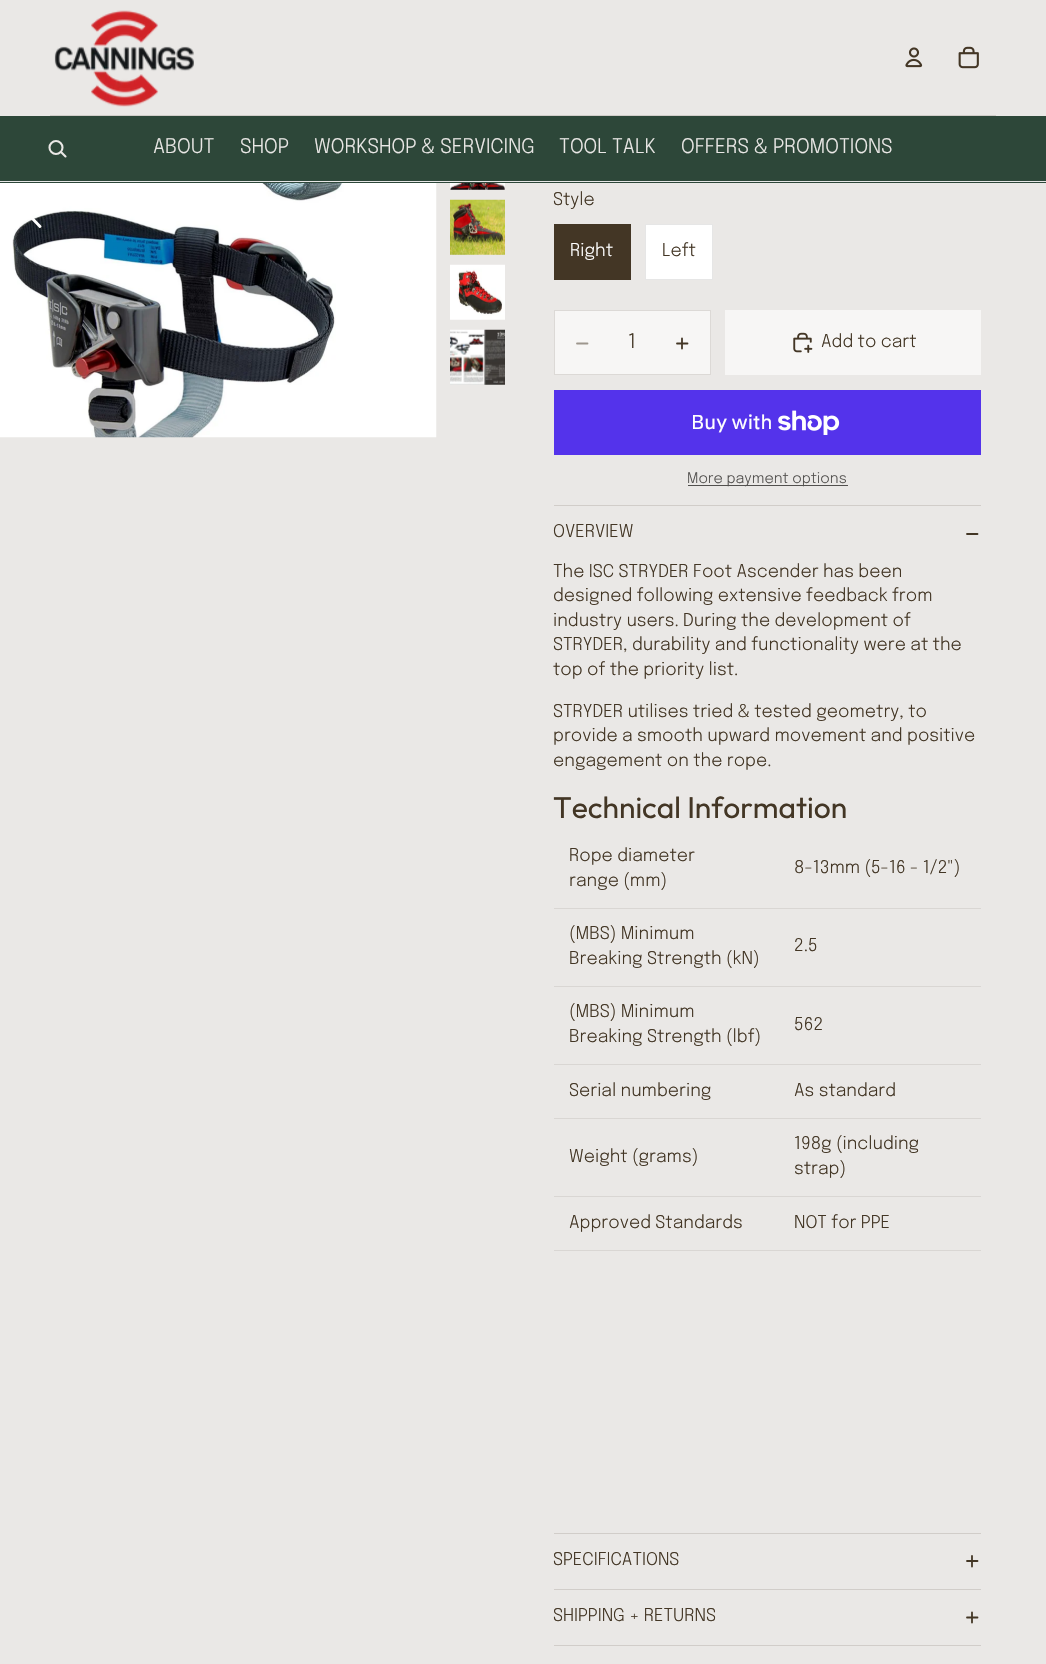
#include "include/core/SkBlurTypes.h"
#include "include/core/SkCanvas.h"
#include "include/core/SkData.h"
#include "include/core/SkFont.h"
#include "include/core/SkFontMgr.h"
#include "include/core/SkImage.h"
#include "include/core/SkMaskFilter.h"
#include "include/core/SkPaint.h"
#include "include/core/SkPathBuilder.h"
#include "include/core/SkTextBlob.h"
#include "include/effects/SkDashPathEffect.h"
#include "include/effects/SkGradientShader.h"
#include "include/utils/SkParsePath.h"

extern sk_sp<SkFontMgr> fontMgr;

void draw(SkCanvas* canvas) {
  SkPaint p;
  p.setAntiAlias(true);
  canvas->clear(SkColorSetRGB(234, 232, 230));
  p.setColor(SkColorSetRGB(209, 205, 201));
  canvas->drawRect(SkRect::MakeLTRB(50, 115, 996, 116), p);
  canvas->drawImageRect(SkImages::DeferredFromEncodedData(SkData::MakeFromFileName("images/1.png")), SkRect::MakeLTRB(54, 10, 194, 107), SkSamplingOptions());
  canvas->drawImageRect(SkImages::DeferredFromEncodedData(SkData::MakeFromFileName("images/2.png")), SkRect::MakeLTRB(905, 47, 923, 68), SkSamplingOptions());
  canvas->drawImageRect(SkImages::DeferredFromEncodedData(SkData::MakeFromFileName("images/3.png")), SkRect::MakeLTRB(958, 46, 979, 69), SkSamplingOptions());
  p.setColor(SkColorSetRGB(45, 71, 57));
  canvas->drawRect(SkRect::MakeLTRB(0, 116, 1046, 183), p);
  p.setColor(SkColorSetRGB(230, 230, 230));
  canvas->drawRect(SkRect::MakeLTRB(0, 181, 1046, 182), p);
  p.setStyle(SkPaint::kStroke_Style);
  p.setStrokeWidth(2.1f);
  p.setColor(SkColorSetRGB(234, 232, 230));
  canvas->drawCircle(56, 147.5f, 6.5f, p);
  p.setStrokeCap(SkPaint::kRound_Cap);
  p.setStrokeJoin(SkPaint::kRound_Join);
  canvas->drawPath(SkPathBuilder().moveTo(61, 152).lineTo(65.5f, 156.5f).detach(), p);
  canvas->drawImageRect(SkImages::DeferredFromEncodedData(SkData::MakeFromFileName("images/4.png")), SkRect::MakeLTRB(0, 183, 437, 438), SkSamplingOptions());
  p.setStrokeWidth(2.9f);
  p.setColor(SK_ColorWHITE);
  canvas->drawPath(SkPathBuilder().moveTo(40, 203.5f).lineTo(29, 215).lineTo(40, 226.5f).detach(), p);
  canvas->drawImageRect(SkImages::DeferredFromEncodedData(SkData::MakeFromFileName("images/5.png")), SkRect::MakeLTRB(450, 183, 505, 190), SkSamplingOptions());
  canvas->drawImageRect(SkImages::DeferredFromEncodedData(SkData::MakeFromFileName("images/6.png")), SkRect::MakeLTRB(450, 199, 505, 255), SkSamplingOptions());
  canvas->drawImageRect(SkImages::DeferredFromEncodedData(SkData::MakeFromFileName("images/7.png")), SkRect::MakeLTRB(450, 264, 505, 320), SkSamplingOptions());
  canvas->drawImageRect(SkImages::DeferredFromEncodedData(SkData::MakeFromFileName("images/8.png")), SkRect::MakeLTRB(450, 329, 505, 385), SkSamplingOptions());
  p.setStrokeWidth(1);
  p.setStrokeCap(SkPaint::kButt_Cap);
  p.setStrokeJoin(SkPaint::kMiter_Join);
  p.setColor(SkColorSetRGB(67, 54, 37));
  canvas->drawRect(SkRect::MakeLTRB(554.5f, 224.5f, 630.5f, 279.5f), p);
  p.setStyle(SkPaint::kFill_Style);
  canvas->drawRect(SkRect::MakeLTRB(555, 225, 630, 279), p);
  p.setColor(SK_ColorWHITE);
  canvas->drawRect(SkRect::MakeLTRB(645.5f, 224.5f, 712.5f, 279.5f), p);
  p.setStyle(SkPaint::kStroke_Style);
  p.setColor(SkColorSetRGB(230, 230, 230));
  canvas->drawRect(SkRect::MakeLTRB(645.5f, 224.5f, 712.5f, 279.5f), p);
  p.setStyle(SkPaint::kFill_Style);
  p.setColor(SkColorSetRGB(247, 246, 245));
  canvas->drawRect(SkRect::MakeLTRB(554.5f, 310.5f, 710.5f, 374.5f), p);
  p.setStyle(SkPaint::kStroke_Style);
  p.setColor(SkColorSetRGB(220, 217, 214));
  canvas->drawRect(SkRect::MakeLTRB(554.5f, 310.5f, 710.5f, 374.5f), p);
  p.setStrokeWidth(1.8f);
  p.setStrokeCap(SkPaint::kRound_Cap);
  p.setColor(SkColorSetRGB(157, 150, 141));
  canvas->drawPath(SkPathBuilder().moveTo(577, 343.5f).lineTo(587.5f, 343.5f).detach(), p);
  p.setColor(SkColorSetRGB(67, 54, 37));
  canvas->drawPath(SkPathBuilder().moveTo(677, 343.5f).lineTo(687.5f, 343.5f).moveTo(682, 338.5f).lineTo(682, 348.5f).detach(), p);
  p.setStyle(SkPaint::kFill_Style);
  p.setColor(SkColorSetRGB(247, 246, 245));
  canvas->drawRect(SkRect::MakeLTRB(725, 310, 981, 375), p);
  canvas->drawImageRect(SkImages::DeferredFromEncodedData(SkData::MakeFromFileName("images/9.png")), SkRect::MakeLTRB(793, 332, 813, 353), SkSamplingOptions());
  p.setColor(SkColorSetRGB(84, 51, 235));
  canvas->drawRect(SkRect::MakeLTRB(554, 390, 981, 455), p);
  canvas->drawImageRect(SkImages::DeferredFromEncodedData(SkData::MakeFromFileName("images/10.png")), SkRect::MakeLTRB(778, 410, 840, 435), SkSamplingOptions());
  p.setColor(SkColorSetRGB(82, 80, 78));
  canvas->drawRect(SkRect::MakeLTRB(688, 485, 848, 486), p);
  p.setColor(SkColorSetRGB(209, 205, 201));
  canvas->drawRect(SkRect::MakeLTRB(554, 505, 981, 506), p);
  p.setStyle(SkPaint::kStroke_Style);
  p.setColor(SkColorSetRGB(67, 54, 37));
  canvas->drawPath(SkPathBuilder().moveTo(977.5f, 534).lineTo(967, 534).detach(), p);
  p.setStyle(SkPaint::kFill_Style);
  p.setColor(SkColorSetRGB(217, 214, 211));
  canvas->drawRect(SkRect::MakeLTRB(554, 908, 981, 909), p);
  canvas->drawRect(SkRect::MakeLTRB(554, 986, 981, 987), p);
  canvas->drawRect(SkRect::MakeLTRB(554, 1064, 981, 1065), p);
  canvas->drawRect(SkRect::MakeLTRB(554, 1118, 981, 1119), p);
  canvas->drawRect(SkRect::MakeLTRB(554, 1196, 981, 1197), p);
  canvas->drawRect(SkRect::MakeLTRB(554, 1250, 981, 1251), p);
  p.setColor(SkColorSetRGB(209, 205, 201));
  canvas->drawRect(SkRect::MakeLTRB(554, 1533, 981, 1534), p);
  p.setStyle(SkPaint::kStroke_Style);
  p.setColor(SkColorSetRGB(67, 54, 37));
  canvas->drawPath(SkPathBuilder().moveTo(967, 1561).lineTo(977.5f, 1561).moveTo(972, 1556).lineTo(972, 1566.5f).detach(), p);
  p.setStyle(SkPaint::kFill_Style);
  p.setColor(SkColorSetRGB(209, 205, 201));
  canvas->drawRect(SkRect::MakeLTRB(554, 1589, 981, 1590), p);
  canvas->drawRect(SkRect::MakeLTRB(554, 1645, 981, 1646), p);
  p.setStyle(SkPaint::kStroke_Style);
  p.setColor(SkColorSetRGB(67, 54, 37));
  canvas->drawPath(SkPathBuilder().moveTo(967, 1617.5f).lineTo(977.5f, 1617.5f).moveTo(972, 1612.5f).lineTo(972, 1622.5f).detach(), p);
  SkFont font1(fontMgr->matchFamilyStyle("Epilogue", SkFontStyle(300, SkFontStyle::kNormal_Width, SkFontStyle::kUpright_Slant)), 20);
  font1.setSubpixel(true);
  p.setStyle(SkPaint::kFill_Style);
  p.setColor(SkColorSetRGB(234, 232, 230));
  canvas->drawString("ABOUT", 153, 153, font1, p);
  canvas->drawString("SHOP", 240, 153, font1, p);
  canvas->drawString("WORKSHOP & SERVICING", 314, 153, font1, p);
  canvas->drawString("TOOL TALK", 559, 153, font1, p);
  canvas->drawString("OFFERS & PROMOTIONS", 681, 153, font1, p);
  SkFont font2(fontMgr->matchFamilyStyle("Epilogue", SkFontStyle(300, SkFontStyle::kNormal_Width, SkFontStyle::kUpright_Slant)), 17.5f);
  font2.setSubpixel(true);
  p.setColor(SkColorSetRGB(67, 54, 37));
  canvas->drawString("Style", 553, 205, font2, p);
  p.setColor(SK_ColorWHITE);
  canvas->drawString("Right", 570, 256, font2, p);
  p.setColor(SkColorSetRGB(67, 54, 37));
  canvas->drawString("Left", 662, 256, font2, p);
  canvas->drawString("1", 628, 348, font1, p);
  canvas->drawString("Add to cart", 821, 347, font2, p);
  SkFont font3(fontMgr->matchFamilyStyle("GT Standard", SkFontStyle::Normal()), 20);
  font3.setSubpixel(true);
  p.setColor(SK_ColorWHITE);
  canvas->drawString("Buy with", 691, 429, font3, p);
  SkFont font4(fontMgr->matchFamilyStyle("Epilogue", SkFontStyle(300, SkFontStyle::kNormal_Width, SkFontStyle::kUpright_Slant)), 14.5f);
  font4.setSubpixel(true);
  p.setColor(SkColorSetRGB(82, 80, 78));
  canvas->drawString("More payment options", 687, 483, font4, p);
  p.setColor(SkColorSetRGB(67, 54, 37));
  canvas->drawString("OVERVIEW", 553, 537, font2, p);
  canvas->drawString("The ISC STRYDER Foot Ascender has been", 553, 577, font2, p);
  canvas->drawString("designed following extensive feedback from", 553, 601, font2, p);
  canvas->drawString("industry users. During the development of", 553, 626, font2, p);
  canvas->drawString("STRYDER, durability and functionality were at the", 553, 650, font2, p);
  canvas->drawString("top of the priority list.", 553, 675, font2, p);
  canvas->drawString("STRYDER utilises tried & tested geometry, to", 553, 717, font2, p);
  canvas->drawString("provide a smooth upward movement and positive", 553, 741, font2, p);
  canvas->drawString("engagement on the rope.", 553, 766, font2, p);
  SkFont font5(fontMgr->matchFamilyStyle("Outfit", SkFontStyle::Normal()), 30);
  font5.setSubpixel(true);
  canvas->drawString("Technical Information", 553, 818, font5, p);
  canvas->drawString("Rope diameter", 569, 861, font2, p);
  canvas->drawString("range (mm)", 569, 886, font2, p);
  canvas->drawString("8-13mm (5-16 - 1/2\")", 794, 873, font2, p);
  canvas->drawString("(MBS) Minimum", 569, 939, font2, p);
  canvas->drawString("Breaking Strength (kN)", 569, 964, font2, p);
  canvas->drawString("2.5", 794, 951, font2, p);
  canvas->drawString("(MBS) Minimum", 569, 1017, font2, p);
  canvas->drawString("Breaking Strength (lbf)", 569, 1042, font2, p);
  canvas->drawString("562", 794, 1030, font2, p);
  canvas->drawString("Serial numbering", 569, 1096, font2, p);
  canvas->drawString("As standard", 794, 1096, font2, p);
  canvas->drawString("Weight (grams)", 569, 1162, font2, p);
  canvas->drawString("198g (including", 794, 1149, font2, p);
  canvas->drawString("strap)", 794, 1174, font2, p);
  canvas->drawString("Approved Standards", 569, 1228, font2, p);
  canvas->drawString("NOT for PPE", 794, 1228, font2, p);
  canvas->drawString("SPECIFICATIONS", 553, 1565, font2, p);
  canvas->drawString("SHIPPING + RETURNS", 553, 1621, font2, p);
}
